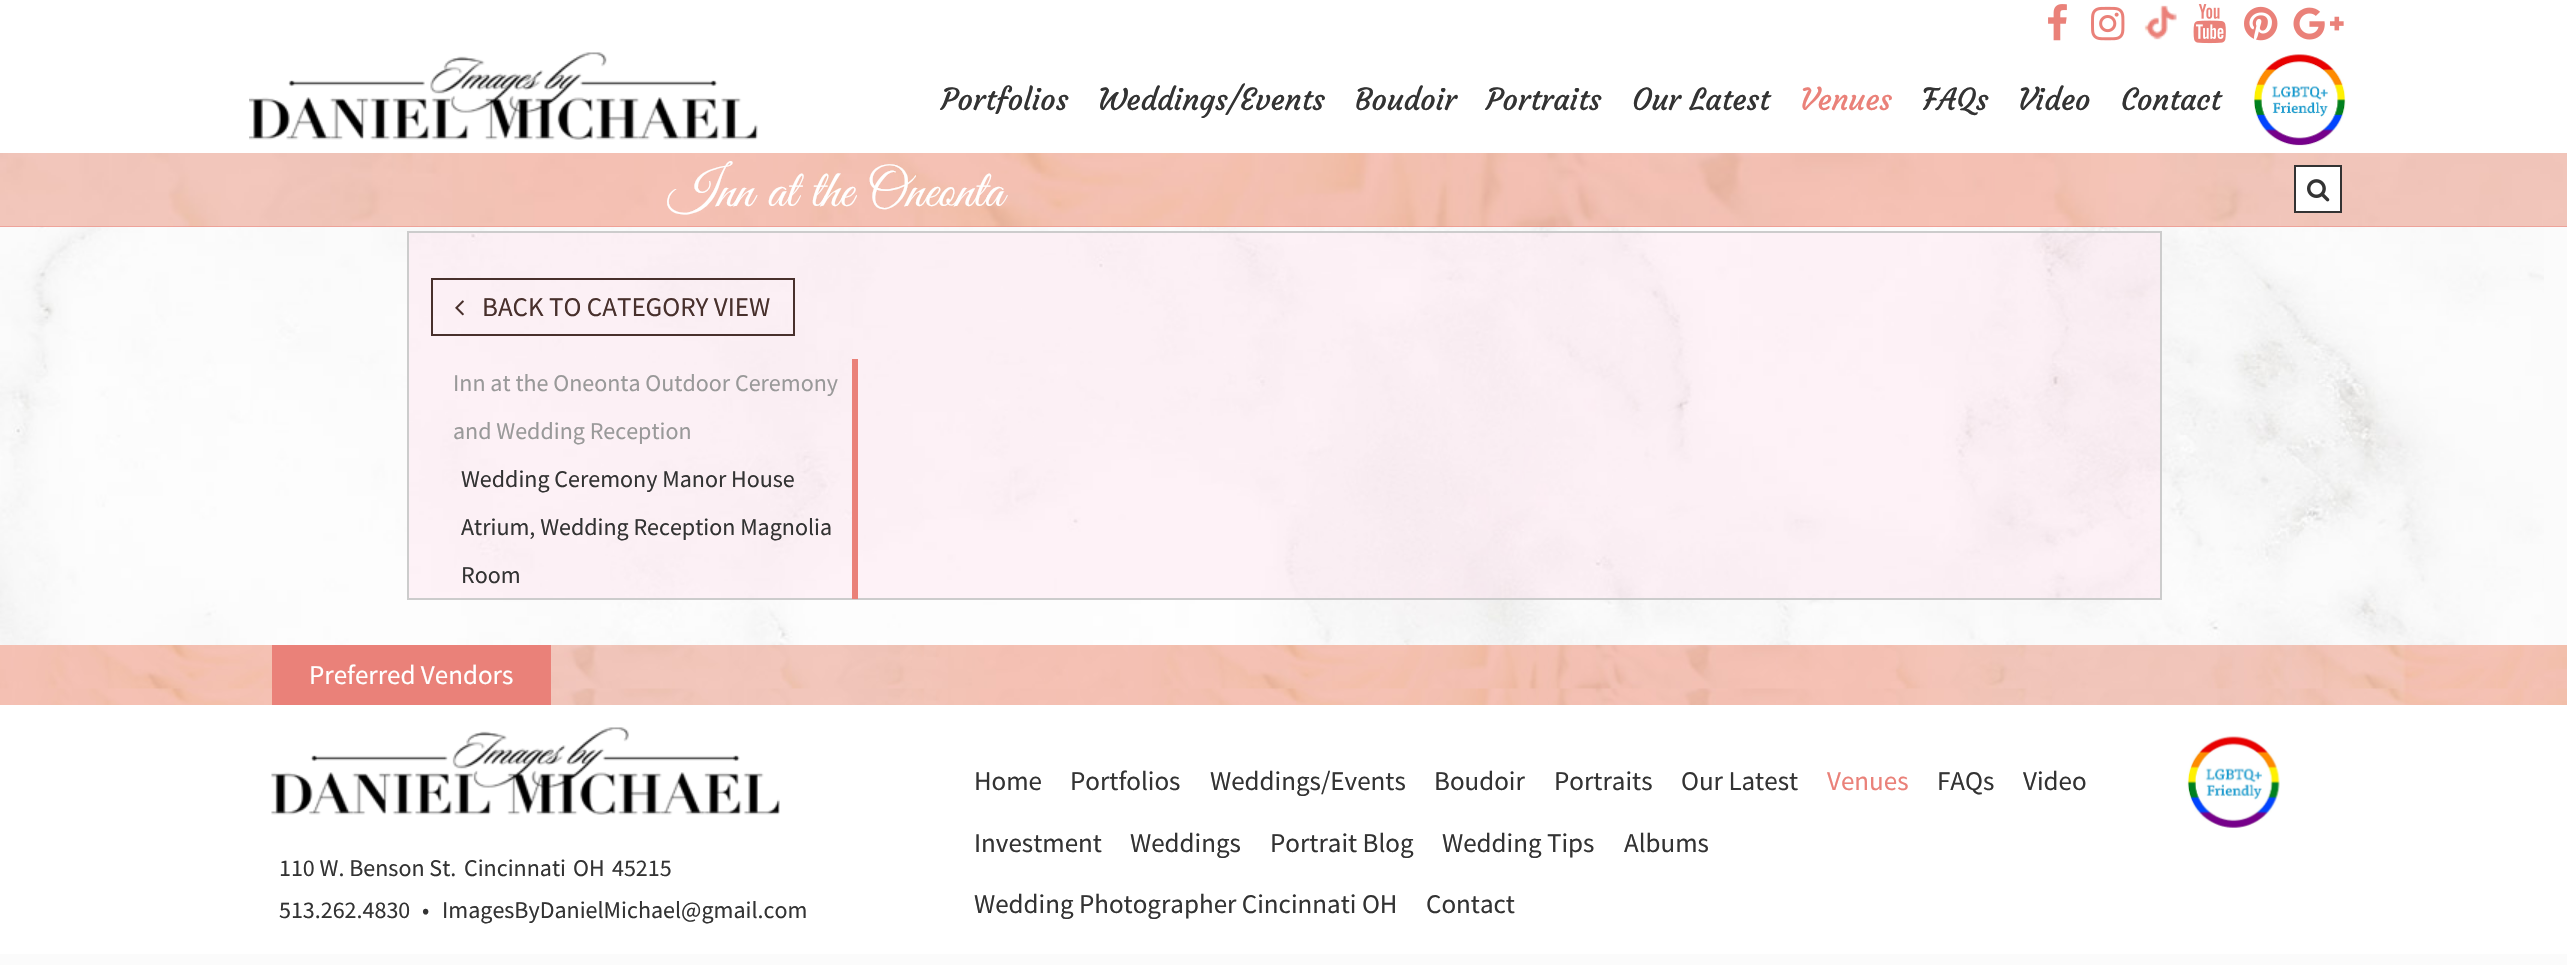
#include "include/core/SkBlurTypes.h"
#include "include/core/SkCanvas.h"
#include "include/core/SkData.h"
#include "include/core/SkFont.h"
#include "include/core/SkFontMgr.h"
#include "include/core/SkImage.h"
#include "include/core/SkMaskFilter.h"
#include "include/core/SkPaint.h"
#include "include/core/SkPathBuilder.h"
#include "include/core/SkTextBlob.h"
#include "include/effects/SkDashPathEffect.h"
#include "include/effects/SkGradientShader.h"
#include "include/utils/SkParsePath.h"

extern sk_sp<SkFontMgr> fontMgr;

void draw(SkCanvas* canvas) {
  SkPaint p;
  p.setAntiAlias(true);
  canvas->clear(SkColorSetRGB(251, 251, 251));
  p.setColor(SK_ColorWHITE);
  canvas->drawRect(SkRect::MakeLTRB(0, 0, 2567, 153), p);
  canvas->drawImageRect(SkImages::DeferredFromEncodedData(SkData::MakeFromFileName("images/1.png")), SkRect::MakeLTRB(2048, 4, 2067, 41), SkSamplingOptions());
  canvas->drawImageRect(SkImages::DeferredFromEncodedData(SkData::MakeFromFileName("images/2.png")), SkRect::MakeLTRB(2091, 6, 2125, 41), SkSamplingOptions());
  canvas->drawImageRect(SkImages::DeferredFromEncodedData(SkData::MakeFromFileName("images/3.png")), SkRect::MakeLTRB(2144, 5, 2177, 40), SkSamplingOptions());
  canvas->drawImageRect(SkImages::DeferredFromEncodedData(SkData::MakeFromFileName("images/4.png")), SkRect::MakeLTRB(2193, 4, 2226, 44), SkSamplingOptions());
  canvas->drawImageRect(SkImages::DeferredFromEncodedData(SkData::MakeFromFileName("images/5.png")), SkRect::MakeLTRB(2244, 6, 2278, 41), SkSamplingOptions());
  canvas->drawImageRect(SkImages::DeferredFromEncodedData(SkData::MakeFromFileName("images/6.png")), SkRect::MakeLTRB(2293, 7, 2344, 40), SkSamplingOptions());
  canvas->drawImageRect(SkImages::DeferredFromEncodedData(SkData::MakeFromFileName("images/7.png")), SkRect::MakeLTRB(249, 52, 758, 140), SkSamplingOptions());
  canvas->drawImageRect(SkImages::DeferredFromEncodedData(SkData::MakeFromFileName("images/8.png")), SkRect::MakeLTRB(2254, 54, 2346, 146), SkSamplingOptions());
  canvas->drawImageRect(SkImages::DeferredFromEncodedData(SkData::MakeFromFileName("images/9.png")), SkRect::MakeLTRB(0, 227, 2544, 645), SkSamplingOptions());
  p.setColor(SkColorSetRGB(234, 129, 121));
  canvas->drawRect(SkRect::MakeLTRB(0, 226, 2567, 227), p);
  canvas->drawImageRect(SkImages::DeferredFromEncodedData(SkData::MakeFromFileName("images/10.png")), SkRect::MakeLTRB(0, 153, 2567, 227), SkSamplingOptions());
  p.setColor(SK_ColorWHITE);
  canvas->drawRect(SkRect::MakeLTRB(2295, 166, 2341, 212), p);
  p.setStyle(SkPaint::kStroke_Style);
  p.setStrokeWidth(2);
  p.setColor(SkColorSetRGB(51, 51, 51));
  canvas->drawRect(SkRect::MakeLTRB(2295, 166, 2341, 212), p);
  canvas->drawImageRect(SkImages::DeferredFromEncodedData(SkData::MakeFromFileName("images/11.png")), SkRect::MakeLTRB(2307, 179, 2330, 202), SkSamplingOptions());
  p.setStyle(SkPaint::kFill_Style);
  p.setColor(SkColorSetARGB(89, 255, 222, 235));
  canvas->drawRect(SkRect::MakeLTRB(408, 232, 2161, 599), p);
  p.setStyle(SkPaint::kStroke_Style);
  p.setColor(SkColorSetRGB(204, 204, 204));
  canvas->drawRect(SkRect::MakeLTRB(408, 232, 2161, 599), p);
  p.setColor(SkColorSetRGB(72, 48, 44));
  canvas->drawRect(SkRect::MakeLTRB(432, 279, 794, 335), p);
  canvas->drawImageRect(SkImages::DeferredFromEncodedData(SkData::MakeFromFileName("images/12.png")), SkRect::MakeLTRB(455, 300, 464, 316), SkSamplingOptions());
  p.setStyle(SkPaint::kFill_Style);
  p.setColor(SkColorSetRGB(234, 129, 121));
  canvas->drawRect(SkRect::MakeLTRB(852, 359, 858, 599), p);
  p.setColor(SK_ColorWHITE);
  canvas->drawRect(SkRect::MakeLTRB(0, 705, 2567, 954), p);
  canvas->drawImageRect(SkImages::DeferredFromEncodedData(SkData::MakeFromFileName("images/13.png")), SkRect::MakeLTRB(0, 645, 2567, 705), SkSamplingOptions());
  p.setColor(SkColorSetRGB(234, 129, 121));
  canvas->drawRect(SkRect::MakeLTRB(272, 645, 551, 705), p);
  canvas->drawImageRect(SkImages::DeferredFromEncodedData(SkData::MakeFromFileName("images/14.png")), SkRect::MakeLTRB(271, 727, 780, 815), SkSamplingOptions());
  canvas->drawImageRect(SkImages::DeferredFromEncodedData(SkData::MakeFromFileName("images/15.png")), SkRect::MakeLTRB(2187, 736, 2280, 828), SkSamplingOptions());
  SkFont font1(fontMgr->matchFamilyStyle("Courgette", SkFontStyle::Normal()), 30);
  font1.setSubpixel(true);
  p.setColor(SkColorSetRGB(51, 51, 51));
  canvas->drawString("Portfolios", 941, 110, font1, p);
  canvas->drawString("Weddings/Events", 1098, 110, font1, p);
  canvas->drawString("Boudoir", 1355, 110, font1, p);
  canvas->drawString("Portraits", 1486, 110, font1, p);
  canvas->drawString("Our Latest", 1632, 110, font1, p);
  p.setColor(SkColorSetRGB(234, 129, 121));
  canvas->drawString("Venues", 1800, 110, font1, p);
  p.setColor(SkColorSetRGB(51, 51, 51));
  canvas->drawString("FAQs", 1922, 110, font1, p);
  canvas->drawString("Video", 2018, 110, font1, p);
  canvas->drawString("Contact", 2121, 110, font1, p);
  SkFont font2(fontMgr->matchFamilyStyle("Great Vibes", SkFontStyle::Normal()), 54);
  font2.setSubpixel(true);
  p.setColor(SK_ColorWHITE);
  canvas->drawString("Inn at the Oneonta", 668, 206, font2, p);
  SkFont font3(fontMgr->matchFamilyStyle("Source Sans Pro", SkFontStyle::Normal()), 27);
  font3.setSubpixel(true);
  p.setColor(SkColorSetRGB(72, 48, 44));
  canvas->drawString("BACK TO CATEGORY VIEW", 482, 316, font3, p);
  SkFont font4(fontMgr->matchFamilyStyle("Source Sans Pro", SkFontStyle::Normal()), 24);
  font4.setSubpixel(true);
  p.setColor(SkColorSetRGB(153, 153, 153));
  canvas->drawString("Inn at the Oneonta Outdoor Ceremony", 453, 391, font4, p);
  canvas->drawString("and Wedding Reception", 453, 439, font4, p);
  p.setColor(SkColorSetRGB(51, 51, 51));
  canvas->drawString("Wedding Ceremony Manor House", 461, 487, font4, p);
  canvas->drawString("Atrium, Wedding Reception Magnolia", 461, 535, font4, p);
  canvas->drawString("Room", 461, 583, font4, p);
  p.setColor(SK_ColorWHITE);
  canvas->drawString("Preferred Vendors", 309, 684, font3, p);
  p.setColor(SkColorSetRGB(51, 51, 51));
  canvas->drawString("110 W. Benson St.", 279, 876, font4, p);
  canvas->drawString("Cincinnati", 464, 876, font4, p);
  canvas->drawString("OH", 573, 876, font4, p);
  canvas->drawString("45215", 612, 876, font4, p);
  canvas->drawString("513.262.4830", 279, 918, font4, p);
  canvas->drawString("•", 422, 918, font4, p);
  canvas->drawString("ImagesByDanielMichael@gmail.com", 442, 918, font4, p);
  canvas->drawString("Home", 974, 790, font3, p);
  canvas->drawString("Portfolios", 1070, 790, font3, p);
  canvas->drawString("Weddings/Events", 1210, 790, font3, p);
  canvas->drawString("Boudoir", 1434, 790, font3, p);
  canvas->drawString("Portraits", 1554, 790, font3, p);
  canvas->drawString("Our Latest", 1681, 790, font3, p);
  p.setColor(SkColorSetRGB(234, 129, 121));
  canvas->drawString("Venues", 1827, 790, font3, p);
  p.setColor(SkColorSetRGB(51, 51, 51));
  canvas->drawString("FAQs", 1937, 790, font3, p);
  canvas->drawString("Video", 2023, 790, font3, p);
  canvas->drawString("Investment", 974, 852, font3, p);
  canvas->drawString("Weddings", 1130, 852, font3, p);
  canvas->drawString("Portrait Blog", 1270, 852, font3, p);
  canvas->drawString("Wedding Tips", 1442, 852, font3, p);
  canvas->drawString("Albums", 1624, 852, font3, p);
  canvas->drawString("Wedding Photographer Cincinnati OH", 974, 913, font3, p);
  canvas->drawString("Contact", 1426, 913, font3, p);
}
